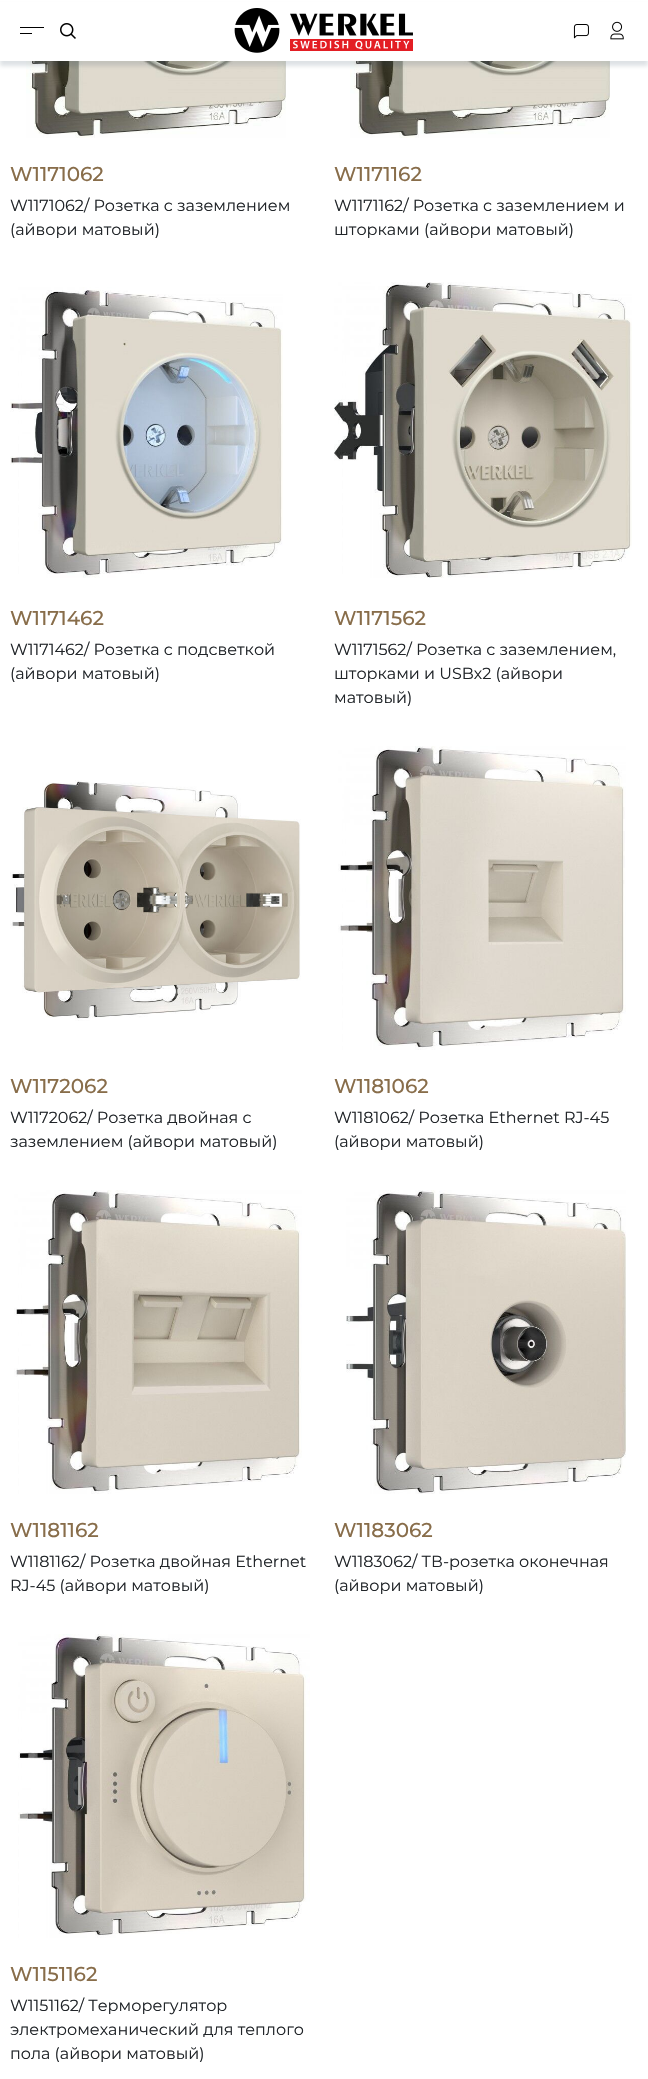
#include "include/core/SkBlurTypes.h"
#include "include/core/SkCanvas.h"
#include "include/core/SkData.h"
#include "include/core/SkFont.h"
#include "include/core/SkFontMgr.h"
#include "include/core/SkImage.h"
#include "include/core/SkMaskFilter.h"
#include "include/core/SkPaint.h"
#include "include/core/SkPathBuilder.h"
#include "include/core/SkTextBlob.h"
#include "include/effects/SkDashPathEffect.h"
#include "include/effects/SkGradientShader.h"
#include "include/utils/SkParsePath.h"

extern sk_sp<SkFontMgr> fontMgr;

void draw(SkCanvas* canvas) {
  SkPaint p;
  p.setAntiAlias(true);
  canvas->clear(SK_ColorWHITE);
  canvas->drawImageRect(SkImages::DeferredFromEncodedData(SkData::MakeFromFileName("images/5.png")), SkRect::MakeLTRB(26, 61, 286, 138), SkSamplingOptions());
  canvas->drawImageRect(SkImages::DeferredFromEncodedData(SkData::MakeFromFileName("images/6.png")), SkRect::MakeLTRB(350, 61, 610, 138), SkSamplingOptions());
  p.setColor(SkColorSetARGB(38, 34, 60, 80));
  p.setMaskFilter(SkMaskFilter::MakeBlur(kNormal_SkBlurStyle, 2));
  canvas->drawRect(SkRect::MakeLTRB(0, 5, 648, 66), p);
  p.setMaskFilter(nullptr);
  p.setColor(SK_ColorWHITE);
  canvas->drawRect(SkRect::MakeLTRB(0, 2, 648, 61), p);
  p.setColor(SK_ColorBLACK);
  canvas->drawRect(SkRect::MakeLTRB(20, 27, 44, 28), p);
  canvas->drawRect(SkRect::MakeLTRB(20, 33, 32, 34), p);
  canvas->drawImageRect(SkImages::DeferredFromEncodedData(SkData::MakeFromFileName("images/1.png")), SkRect::MakeLTRB(60, 23, 76, 39), SkSamplingOptions());
  canvas->drawImageRect(SkImages::DeferredFromEncodedData(SkData::MakeFromFileName("images/2.png")), SkRect::MakeLTRB(234, 8, 413, 53), SkSamplingOptions());
  canvas->drawImageRect(SkImages::DeferredFromEncodedData(SkData::MakeFromFileName("images/3.png")), SkRect::MakeLTRB(573, 24, 589, 39), SkSamplingOptions());
  canvas->drawImageRect(SkImages::DeferredFromEncodedData(SkData::MakeFromFileName("images/4.png")), SkRect::MakeLTRB(610, 21, 624, 40), SkSamplingOptions());
  canvas->drawImageRect(SkImages::DeferredFromEncodedData(SkData::MakeFromFileName("images/7.png")), SkRect::MakeLTRB(10, 287, 283, 578), SkSamplingOptions());
  canvas->drawImageRect(SkImages::DeferredFromEncodedData(SkData::MakeFromFileName("images/8.png")), SkRect::MakeLTRB(334, 282, 632, 578), SkSamplingOptions());
  canvas->drawImageRect(SkImages::DeferredFromEncodedData(SkData::MakeFromFileName("images/9.png")), SkRect::MakeLTRB(10, 780, 301, 1021), SkSamplingOptions());
  canvas->drawImageRect(SkImages::DeferredFromEncodedData(SkData::MakeFromFileName("images/10.png")), SkRect::MakeLTRB(338, 746, 626, 1050), SkSamplingOptions());
  canvas->drawImageRect(SkImages::DeferredFromEncodedData(SkData::MakeFromFileName("images/11.png")), SkRect::MakeLTRB(14, 1190, 302, 1494), SkSamplingOptions());
  canvas->drawImageRect(SkImages::DeferredFromEncodedData(SkData::MakeFromFileName("images/12.png")), SkRect::MakeLTRB(346, 1190, 626, 1494), SkSamplingOptions());
  canvas->drawImageRect(SkImages::DeferredFromEncodedData(SkData::MakeFromFileName("images/13.png")), SkRect::MakeLTRB(18, 1634, 310, 1938), SkSamplingOptions());
  SkFont font1(fontMgr->matchFamilyStyle("Montserrat", SkFontStyle(500, SkFontStyle::kNormal_Width, SkFontStyle::kUpright_Slant)), 20);
  font1.setSubpixel(true);
  p.setColor(SkColorSetRGB(136, 109, 74));
  canvas->drawString("W1171062", 10, 181, font1, p);
  SkFont font2(fontMgr->matchFamilyStyle("Montserrat", SkFontStyle::Normal()), 16);
  font2.setSubpixel(true);
  p.setColor(SkColorSetRGB(33, 37, 41));
  canvas->drawString("W1171062/ Розетка с заземлением", 10, 211, font2, p);
  canvas->drawString("(айвори матовый)", 10, 235, font2, p);
  p.setColor(SkColorSetRGB(136, 109, 74));
  canvas->drawString("W1171162", 334, 181, font1, p);
  p.setColor(SkColorSetRGB(33, 37, 41));
  canvas->drawString("W1171162/ Розетка с заземлением и", 334, 211, font2, p);
  canvas->drawString("шторками (айвори матовый)", 334, 235, font2, p);
  p.setColor(SkColorSetRGB(136, 109, 74));
  canvas->drawString("W1171462", 10, 625, font1, p);
  p.setColor(SkColorSetRGB(33, 37, 41));
  canvas->drawString("W1171462/ Розетка с подсветкой", 10, 655, font2, p);
  canvas->drawString("(айвори матовый)", 10, 679, font2, p);
  p.setColor(SkColorSetRGB(136, 109, 74));
  canvas->drawString("W1171562", 334, 625, font1, p);
  p.setColor(SkColorSetRGB(33, 37, 41));
  canvas->drawString("W1171562/ Розетка с заземлением,", 334, 655, font2, p);
  canvas->drawString("шторками и USBх2 (айвори", 334, 679, font2, p);
  canvas->drawString("матовый)", 334, 703, font2, p);
  p.setColor(SkColorSetRGB(136, 109, 74));
  canvas->drawString("W1172062", 10, 1093, font1, p);
  p.setColor(SkColorSetRGB(33, 37, 41));
  canvas->drawString("W1172062/ Розетка двойная с", 10, 1123, font2, p);
  canvas->drawString("заземлением (айвори матовый)", 10, 1147, font2, p);
  p.setColor(SkColorSetRGB(136, 109, 74));
  canvas->drawString("W1181062", 334, 1093, font1, p);
  p.setColor(SkColorSetRGB(33, 37, 41));
  canvas->drawString("W1181062/ Розетка Ethernet RJ-45", 334, 1123, font2, p);
  canvas->drawString("(айвори матовый)", 334, 1147, font2, p);
  p.setColor(SkColorSetRGB(136, 109, 74));
  canvas->drawString("W1181162", 10, 1537, font1, p);
  p.setColor(SkColorSetRGB(33, 37, 41));
  canvas->drawString("W1181162/ Розетка двойная Ethernet", 10, 1567, font2, p);
  canvas->drawString("RJ-45 (айвори матовый)", 10, 1591, font2, p);
  p.setColor(SkColorSetRGB(136, 109, 74));
  canvas->drawString("W1183062", 334, 1537, font1, p);
  p.setColor(SkColorSetRGB(33, 37, 41));
  canvas->drawString("W1183062/ ТВ-розетка оконечная", 334, 1567, font2, p);
  canvas->drawString("(айвори матовый)", 334, 1591, font2, p);
  p.setColor(SkColorSetRGB(136, 109, 74));
  canvas->drawString("W1151162", 10, 1981, font1, p);
  p.setColor(SkColorSetRGB(33, 37, 41));
  canvas->drawString("W1151162/ Терморегулятор", 10, 2011, font2, p);
  canvas->drawString("электромеханический для теплого", 10, 2035, font2, p);
  canvas->drawString("пола (айвори матовый)", 10, 2059, font2, p);
}
